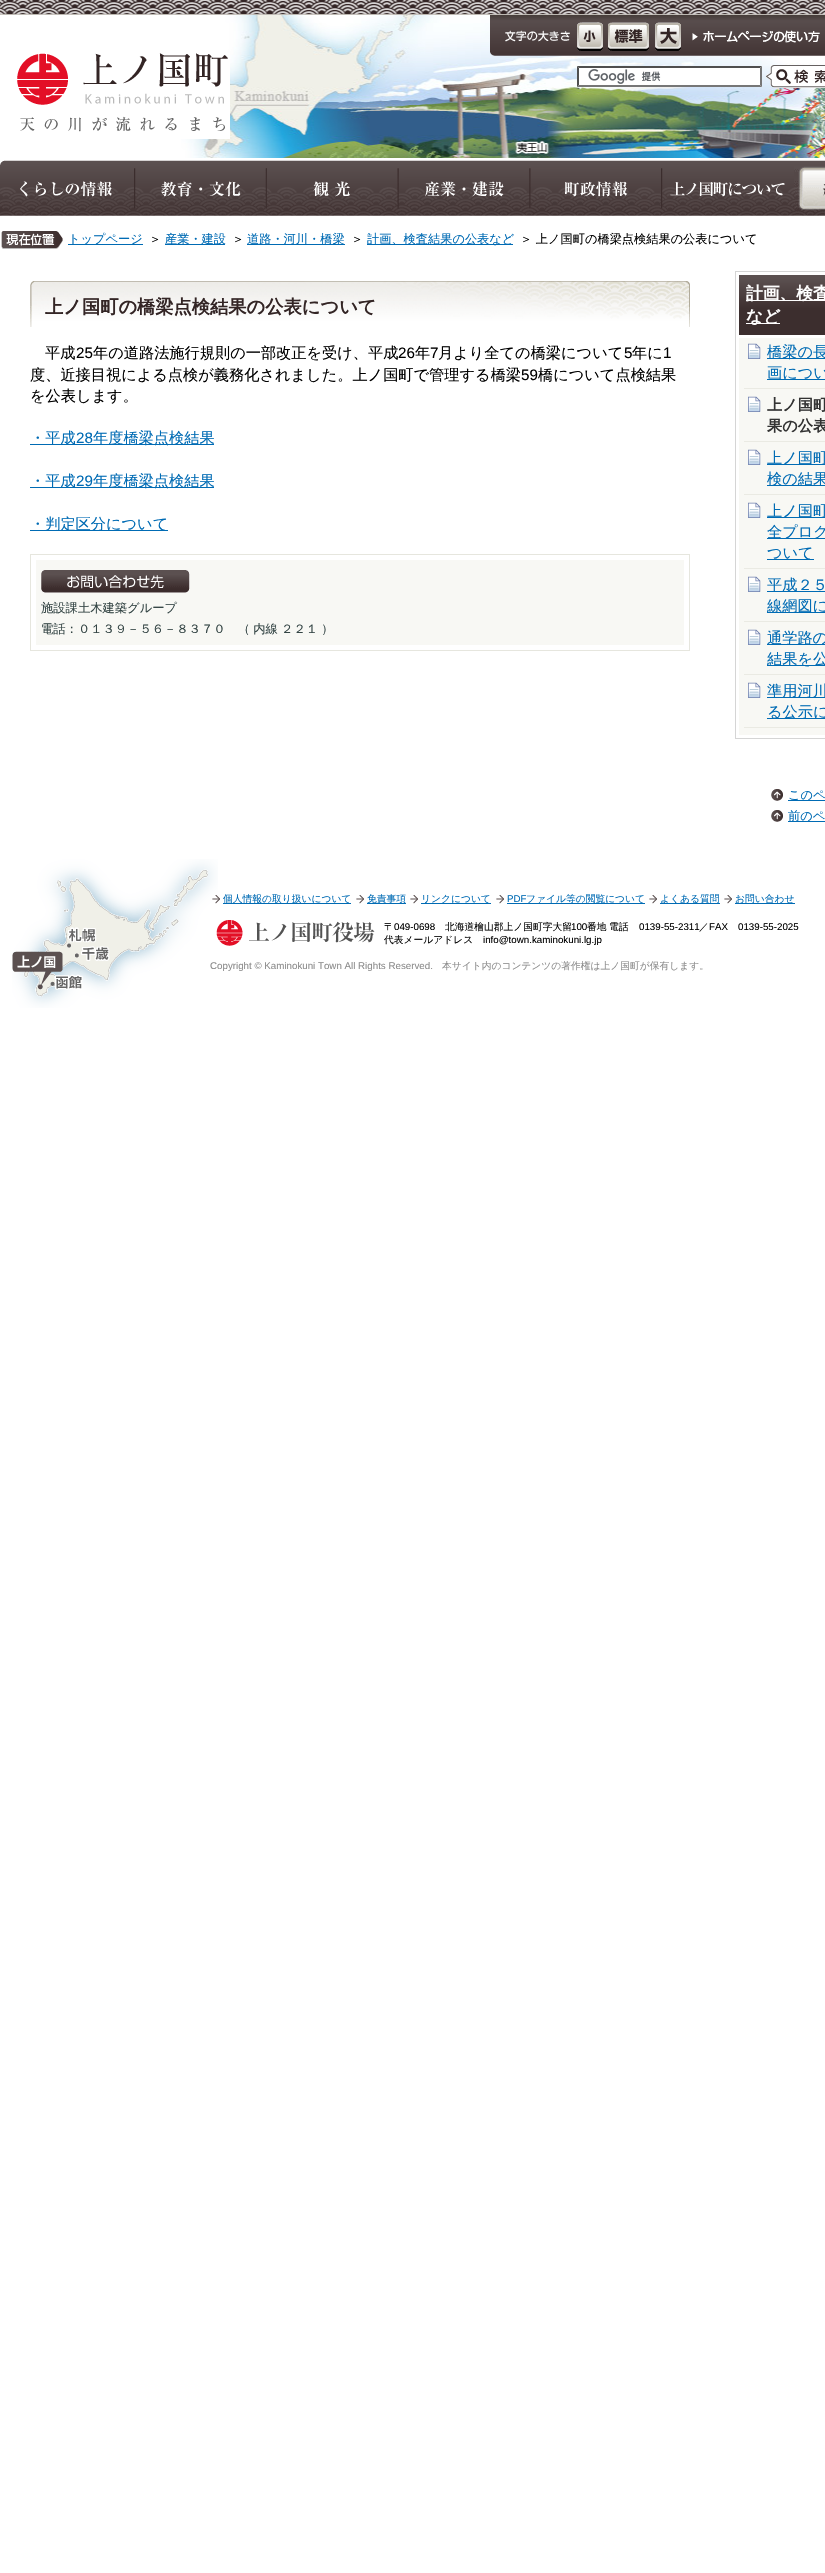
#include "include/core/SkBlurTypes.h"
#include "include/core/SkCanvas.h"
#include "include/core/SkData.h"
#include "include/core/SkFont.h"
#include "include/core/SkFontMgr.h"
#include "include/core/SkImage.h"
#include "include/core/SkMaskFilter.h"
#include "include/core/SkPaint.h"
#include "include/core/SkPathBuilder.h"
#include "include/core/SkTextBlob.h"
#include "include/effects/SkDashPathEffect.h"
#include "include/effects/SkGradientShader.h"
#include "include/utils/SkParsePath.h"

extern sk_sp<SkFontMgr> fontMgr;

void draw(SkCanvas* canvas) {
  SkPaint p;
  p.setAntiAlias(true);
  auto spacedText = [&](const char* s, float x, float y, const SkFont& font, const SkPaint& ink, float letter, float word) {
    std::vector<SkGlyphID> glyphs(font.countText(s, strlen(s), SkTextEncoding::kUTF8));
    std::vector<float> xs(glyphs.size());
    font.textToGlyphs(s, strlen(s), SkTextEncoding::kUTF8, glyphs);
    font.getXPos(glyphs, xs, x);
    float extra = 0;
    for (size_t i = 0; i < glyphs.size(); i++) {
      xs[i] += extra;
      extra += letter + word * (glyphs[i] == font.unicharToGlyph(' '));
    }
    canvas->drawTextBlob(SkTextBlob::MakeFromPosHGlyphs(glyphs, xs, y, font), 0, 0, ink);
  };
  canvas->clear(SK_ColorWHITE);
  canvas->drawImageRect(SkImages::DeferredFromEncodedData(SkData::MakeFromFileName("images/1.png")), SkRect::MakeLTRB(0, 0, 825, 15), SkSamplingOptions());
  canvas->drawImageRect(SkImages::DeferredFromEncodedData(SkData::MakeFromFileName("images/2.png")), SkRect::MakeLTRB(181, 15, 825, 158), SkSamplingOptions());
  canvas->drawImageRect(SkImages::DeferredFromEncodedData(SkData::MakeFromFileName("images/3.png")), SkRect::MakeLTRB(17, 53, 230, 109), SkSamplingOptions());
  canvas->drawImageRect(SkImages::DeferredFromEncodedData(SkData::MakeFromFileName("images/4.png")), SkRect::MakeLTRB(20, 109, 230, 139), SkSamplingOptions());
  canvas->drawImageRect(SkImages::DeferredFromEncodedData(SkData::MakeFromFileName("images/5.png")), SkRect::MakeLTRB(490, 15, 825, 56), SkSamplingOptions());
  canvas->drawImageRect(SkImages::DeferredFromEncodedData(SkData::MakeFromFileName("images/6.png")), SkRect::MakeLTRB(505, 30, 570, 42), SkSamplingOptions());
  canvas->drawImageRect(SkImages::DeferredFromEncodedData(SkData::MakeFromFileName("images/7.png")), SkRect::MakeLTRB(577, 22, 603, 51), SkSamplingOptions());
  canvas->drawImageRect(SkImages::DeferredFromEncodedData(SkData::MakeFromFileName("images/8.png")), SkRect::MakeLTRB(608, 22, 649, 51), SkSamplingOptions());
  canvas->drawImageRect(SkImages::DeferredFromEncodedData(SkData::MakeFromFileName("images/9.png")), SkRect::MakeLTRB(655, 22, 681, 51), SkSamplingOptions());
  canvas->drawImageRect(SkImages::DeferredFromEncodedData(SkData::MakeFromFileName("images/10.png")), SkRect::MakeLTRB(692, 30, 820, 43), SkSamplingOptions());
  p.setColor(SK_ColorWHITE);
  canvas->drawRect(SkRect::MakeLTRB(577, 66, 762, 87), p);
  canvas->drawImageRect(SkImages::DeferredFromEncodedData(SkData::MakeFromFileName("images/11.png")), SkRect::MakeLTRB(588, 69, 661, 84), SkSamplingOptions());
  p.setColor(SkColorSetRGB(79, 79, 79));
  canvas->drawPath(SkPathBuilder().moveTo(577, 66).lineTo(762, 66).lineTo(760, 68).lineTo(579, 68).close().detach(), p);
  p.setColor(SkColorSetRGB(118, 118, 118));
  canvas->drawPath(SkPathBuilder().moveTo(762, 66).lineTo(762, 87).lineTo(760, 85).lineTo(760, 68).close().detach(), p);
  canvas->drawPath(SkPathBuilder().moveTo(762, 87).lineTo(577, 87).lineTo(579, 85).lineTo(760, 85).close().detach(), p);
  p.setColor(SkColorSetRGB(79, 79, 79));
  canvas->drawPath(SkPathBuilder().moveTo(577, 87).lineTo(577, 66).lineTo(579, 68).lineTo(579, 85).close().detach(), p);
  canvas->drawImageRect(SkImages::DeferredFromEncodedData(SkData::MakeFromFileName("images/12.png")), SkRect::MakeLTRB(766, 65, 825, 88), SkSamplingOptions());
  canvas->drawImageRect(SkImages::DeferredFromEncodedData(SkData::MakeFromFileName("images/13.png")), SkRect::MakeLTRB(0, 160, 135, 216), SkSamplingOptions());
  canvas->drawImageRect(SkImages::DeferredFromEncodedData(SkData::MakeFromFileName("images/14.png")), SkRect::MakeLTRB(135, 160, 267, 216), SkSamplingOptions());
  canvas->drawImageRect(SkImages::DeferredFromEncodedData(SkData::MakeFromFileName("images/15.png")), SkRect::MakeLTRB(267, 160, 399, 216), SkSamplingOptions());
  canvas->drawImageRect(SkImages::DeferredFromEncodedData(SkData::MakeFromFileName("images/16.png")), SkRect::MakeLTRB(399, 160, 531, 216), SkSamplingOptions());
  canvas->drawImageRect(SkImages::DeferredFromEncodedData(SkData::MakeFromFileName("images/17.png")), SkRect::MakeLTRB(531, 160, 662, 216), SkSamplingOptions());
  canvas->drawImageRect(SkImages::DeferredFromEncodedData(SkData::MakeFromFileName("images/18.png")), SkRect::MakeLTRB(662, 160, 794, 216), SkSamplingOptions());
  canvas->drawImageRect(SkImages::DeferredFromEncodedData(SkData::MakeFromFileName("images/19.png")), SkRect::MakeLTRB(794, 160, 825, 216), SkSamplingOptions());
  canvas->drawImageRect(SkImages::DeferredFromEncodedData(SkData::MakeFromFileName("images/20.png")), SkRect::MakeLTRB(1, 231, 63, 249), SkSamplingOptions());
  p.setColor(SkColorSetRGB(0, 107, 180));
  canvas->drawRect(SkRect::MakeLTRB(68, 244, 143, 245), p);
  canvas->drawRect(SkRect::MakeLTRB(165, 244, 225, 245), p);
  canvas->drawRect(SkRect::MakeLTRB(247, 244, 345, 245), p);
  canvas->drawRect(SkRect::MakeLTRB(367, 244, 513, 245), p);
  canvas->drawImageRect(SkImages::DeferredFromEncodedData(SkData::MakeFromFileName("images/21.png")), SkRect::MakeLTRB(30, 281, 690, 327), SkSamplingOptions());
  canvas->drawRect(SkRect::MakeLTRB(30, 444, 214, 445), p);
  canvas->drawRect(SkRect::MakeLTRB(30, 487, 214, 488), p);
  canvas->drawRect(SkRect::MakeLTRB(30, 530, 168, 531), p);
  p.setStyle(SkPaint::kStroke_Style);
  p.setStrokeWidth(1);
  p.setColor(SkColorSetRGB(230, 230, 222));
  canvas->drawRect(SkRect::MakeLTRB(30.5f, 554.5f, 689.5f, 650.5f), p);
  p.setStyle(SkPaint::kFill_Style);
  p.setColor(SkColorSetRGB(248, 248, 244));
  canvas->drawRect(SkRect::MakeLTRB(36, 560, 684, 645), p);
  canvas->drawImageRect(SkImages::DeferredFromEncodedData(SkData::MakeFromFileName("images/22.png")), SkRect::MakeLTRB(41, 570, 190, 593), SkSamplingOptions());
  p.setStyle(SkPaint::kStroke_Style);
  p.setColor(SkColorSetRGB(213, 213, 213));
  canvas->drawRect(SkRect::MakeLTRB(735.5f, 271.5f, 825.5f, 738.5f), p);
  canvas->drawImageRect(SkImages::DeferredFromEncodedData(SkData::MakeFromFileName("images/23.png")), SkRect::MakeLTRB(739, 275, 825, 335), SkSamplingOptions());
  p.setStyle(SkPaint::kFill_Style);
  p.setColor(SK_ColorWHITE);
  canvas->drawRect(SkRect::MakeLTRB(746, 300, 825, 301), p);
  canvas->drawRect(SkRect::MakeLTRB(746, 323, 780, 324), p);
  p.setColor(SkColorSetRGB(248, 248, 244));
  canvas->drawRect(SkRect::MakeLTRB(739, 338, 825, 735), p);
  canvas->drawImageRect(SkImages::DeferredFromEncodedData(SkData::MakeFromFileName("images/24.png")), SkRect::MakeLTRB(748, 343, 761, 359), SkSamplingOptions());
  p.setColor(SkColorSetRGB(234, 234, 227));
  canvas->drawRect(SkRect::MakeLTRB(744, 388, 825, 389), p);
  p.setColor(SkColorSetRGB(0, 107, 180));
  canvas->drawRect(SkRect::MakeLTRB(767, 358, 825, 359), p);
  canvas->drawRect(SkRect::MakeLTRB(767, 379, 825, 380), p);
  canvas->drawImageRect(SkImages::DeferredFromEncodedData(SkData::MakeFromFileName("images/24.png")), SkRect::MakeLTRB(748, 396, 761, 412), SkSamplingOptions());
  p.setColor(SkColorSetRGB(234, 234, 227));
  canvas->drawRect(SkRect::MakeLTRB(744, 441, 825, 442), p);
  canvas->drawImageRect(SkImages::DeferredFromEncodedData(SkData::MakeFromFileName("images/24.png")), SkRect::MakeLTRB(748, 449, 761, 465), SkSamplingOptions());
  canvas->drawRect(SkRect::MakeLTRB(744, 494, 825, 495), p);
  p.setColor(SkColorSetRGB(0, 107, 180));
  canvas->drawRect(SkRect::MakeLTRB(767, 464, 825, 465), p);
  canvas->drawRect(SkRect::MakeLTRB(767, 485, 825, 486), p);
  canvas->drawImageRect(SkImages::DeferredFromEncodedData(SkData::MakeFromFileName("images/24.png")), SkRect::MakeLTRB(748, 502, 761, 518), SkSamplingOptions());
  p.setColor(SkColorSetRGB(234, 234, 227));
  canvas->drawRect(SkRect::MakeLTRB(744, 568, 825, 569), p);
  p.setColor(SkColorSetRGB(0, 107, 180));
  canvas->drawRect(SkRect::MakeLTRB(767, 517, 825, 518), p);
  canvas->drawRect(SkRect::MakeLTRB(767, 538, 825, 539), p);
  canvas->drawRect(SkRect::MakeLTRB(767, 559, 814, 560), p);
  canvas->drawImageRect(SkImages::DeferredFromEncodedData(SkData::MakeFromFileName("images/24.png")), SkRect::MakeLTRB(748, 576, 761, 592), SkSamplingOptions());
  p.setColor(SkColorSetRGB(234, 234, 227));
  canvas->drawRect(SkRect::MakeLTRB(744, 621, 825, 622), p);
  p.setColor(SkColorSetRGB(0, 107, 180));
  canvas->drawRect(SkRect::MakeLTRB(767, 591, 825, 592), p);
  canvas->drawRect(SkRect::MakeLTRB(767, 612, 825, 613), p);
  canvas->drawImageRect(SkImages::DeferredFromEncodedData(SkData::MakeFromFileName("images/24.png")), SkRect::MakeLTRB(748, 629, 761, 645), SkSamplingOptions());
  p.setColor(SkColorSetRGB(234, 234, 227));
  canvas->drawRect(SkRect::MakeLTRB(744, 674, 825, 675), p);
  p.setColor(SkColorSetRGB(0, 107, 180));
  canvas->drawRect(SkRect::MakeLTRB(767, 644, 825, 645), p);
  canvas->drawRect(SkRect::MakeLTRB(767, 665, 825, 666), p);
  canvas->drawImageRect(SkImages::DeferredFromEncodedData(SkData::MakeFromFileName("images/24.png")), SkRect::MakeLTRB(748, 682, 761, 698), SkSamplingOptions());
  p.setColor(SkColorSetRGB(234, 234, 227));
  canvas->drawRect(SkRect::MakeLTRB(744, 727, 825, 728), p);
  p.setColor(SkColorSetRGB(0, 107, 180));
  canvas->drawRect(SkRect::MakeLTRB(767, 697, 825, 698), p);
  canvas->drawRect(SkRect::MakeLTRB(767, 718, 825, 719), p);
  canvas->drawImageRect(SkImages::DeferredFromEncodedData(SkData::MakeFromFileName("images/25.png")), SkRect::MakeLTRB(771, 789, 783, 801), SkSamplingOptions());
  canvas->drawRect(SkRect::MakeLTRB(788, 800, 825, 801), p);
  canvas->drawImageRect(SkImages::DeferredFromEncodedData(SkData::MakeFromFileName("images/25.png")), SkRect::MakeLTRB(771, 810, 783, 822), SkSamplingOptions());
  canvas->drawRect(SkRect::MakeLTRB(788, 821, 825, 822), p);
  canvas->drawImageRect(SkImages::DeferredFromEncodedData(SkData::MakeFromFileName("images/26.png")), SkRect::MakeLTRB(12, 859, 218, 1008), SkSamplingOptions());
  canvas->drawImageRect(SkImages::DeferredFromEncodedData(SkData::MakeFromFileName("images/27.png")), SkRect::MakeLTRB(212, 895, 220, 904), SkSamplingOptions());
  canvas->drawRect(SkRect::MakeLTRB(223, 903, 351, 904), p);
  canvas->drawImageRect(SkImages::DeferredFromEncodedData(SkData::MakeFromFileName("images/27.png")), SkRect::MakeLTRB(356, 895, 364, 904), SkSamplingOptions());
  canvas->drawRect(SkRect::MakeLTRB(367, 903, 406, 904), p);
  canvas->drawImageRect(SkImages::DeferredFromEncodedData(SkData::MakeFromFileName("images/27.png")), SkRect::MakeLTRB(410, 895, 418, 904), SkSamplingOptions());
  canvas->drawRect(SkRect::MakeLTRB(421, 903, 491, 904), p);
  canvas->drawImageRect(SkImages::DeferredFromEncodedData(SkData::MakeFromFileName("images/27.png")), SkRect::MakeLTRB(496, 895, 504, 904), SkSamplingOptions());
  canvas->drawRect(SkRect::MakeLTRB(507, 903, 645, 904), p);
  canvas->drawImageRect(SkImages::DeferredFromEncodedData(SkData::MakeFromFileName("images/27.png")), SkRect::MakeLTRB(649, 895, 657, 904), SkSamplingOptions());
  canvas->drawRect(SkRect::MakeLTRB(660, 903, 720, 904), p);
  canvas->drawImageRect(SkImages::DeferredFromEncodedData(SkData::MakeFromFileName("images/27.png")), SkRect::MakeLTRB(724, 895, 732, 904), SkSamplingOptions());
  canvas->drawRect(SkRect::MakeLTRB(735, 903, 795, 904), p);
  canvas->drawImageRect(SkImages::DeferredFromEncodedData(SkData::MakeFromFileName("images/28.png")), SkRect::MakeLTRB(216, 920, 375, 946), SkSamplingOptions());
  SkFont font1(fontMgr->matchFamilyStyle("WenQuanYi Zen Hei", SkFontStyle(500, SkFontStyle::kNormal_Width, SkFontStyle::kUpright_Slant)), 12.2f);
  font1.setSubpixel(true);
  canvas->drawString("トップページ", 68, 243, font1, p);
  p.setColor(SK_ColorBLACK);
  canvas->drawString("＞", 149, 243, font1, p);
  p.setColor(SkColorSetRGB(0, 107, 180));
  canvas->drawString("産業・建設", 165, 243, font1, p);
  p.setColor(SK_ColorBLACK);
  canvas->drawString("＞", 232, 243, font1, p);
  p.setColor(SkColorSetRGB(0, 107, 180));
  canvas->drawString("道路・河川・橋梁", 247, 243, font1, p);
  p.setColor(SK_ColorBLACK);
  canvas->drawString("＞", 351, 243, font1, p);
  p.setColor(SkColorSetRGB(0, 107, 180));
  canvas->drawString("計画、検査結果の公表など", 367, 243, font1, p);
  p.setColor(SK_ColorBLACK);
  canvas->drawString("＞ 上ノ国町の橋梁点検結果の公表について", 520, 243, font1, p);
  SkFont font2(fontMgr->matchFamilyStyle("WenQuanYi Zen Hei", SkFontStyle::Bold()), 18.25f);
  font2.setSubpixel(true);
  p.setColor(SkColorSetRGB(51, 37, 37));
  canvas->drawString("上ノ国町の橋梁点検結果の公表について", 45, 313, font2, p);
  SkFont font3(fontMgr->matchFamilyStyle("WenQuanYi Zen Hei", SkFontStyle(500, SkFontStyle::kNormal_Width, SkFontStyle::kUpright_Slant)), 15.2f);
  font3.setSubpixel(true);
  p.setColor(SK_ColorBLACK);
  canvas->drawString("平成", 45, 358, font3, p);
  SkFont font4(fontMgr->matchFamilyStyle("Liberation Sans", SkFontStyle::Normal()), 15.2f);
  font4.setSubpixel(true);
  canvas->drawString("25", 76, 358, font4, p);
  canvas->drawString("年の道路法施行規則の一部改正を受け、平成", 93, 358, font3, p);
  canvas->drawString("26", 398, 358, font4, p);
  canvas->drawString("年", 415, 358, font3, p);
  canvas->drawString("7", 430, 358, font4, p);
  canvas->drawString("月より全ての橋梁について", 438, 358, font3, p);
  canvas->drawString("5", 624, 358, font4, p);
  canvas->drawString("年に", 632, 358, font3, p);
  canvas->drawString("1", 663, 358, font4, p);
  canvas->drawString("度、近接目視による点検が義務化されました。上ノ国町で管理する橋梁", 30, 380, font3, p);
  canvas->drawString("59", 521, 380, font4, p);
  canvas->drawString("橋について点検結果", 538, 380, font3, p);
  canvas->drawString("を公表します。", 30, 401, font3, p);
  p.setColor(SkColorSetRGB(0, 107, 180));
  canvas->drawString("・平成", 30, 443, font3, p);
  canvas->drawString("28", 76, 443, font4, p);
  canvas->drawString("年度橋梁点検結果", 93, 443, font3, p);
  canvas->drawString("・平成", 30, 486, font3, p);
  canvas->drawString("29", 76, 486, font4, p);
  canvas->drawString("年度橋梁点検結果", 93, 486, font3, p);
  canvas->drawString("・判定区分について", 30, 529, font3, p);
  SkFont font5(fontMgr->matchFamilyStyle("WenQuanYi Zen Hei", SkFontStyle(500, SkFontStyle::kNormal_Width, SkFontStyle::kUpright_Slant)), 12.3f);
  font5.setSubpixel(true);
  p.setColor(SkColorSetRGB(51, 68, 68));
  canvas->drawString("施設課土木建築グループ", 41, 612, font5, p);
  spacedText("電話：０１３９－５６－８３７０　（ 内線 ２２１ ）", 41, 633, font5, p, 0, -0.5f);
  SkFont font6(fontMgr->matchFamilyStyle("WenQuanYi Zen Hei", SkFontStyle::Bold()), 16.75f);
  font6.setSubpixel(true);
  p.setColor(SK_ColorWHITE);
  canvas->drawString("計画、検査", 746, 299, font6, p);
  canvas->drawString("など", 746, 322, font6, p);
  p.setColor(SkColorSetRGB(0, 107, 180));
  canvas->drawString("橋梁の長", 767, 357, font3, p);
  canvas->drawString("画につい", 767, 378, font3, p);
  SkFont font7(fontMgr->matchFamilyStyle("WenQuanYi Zen Hei", SkFontStyle::Bold()), 15.2f);
  font7.setSubpixel(true);
  p.setColor(SkColorSetRGB(51, 51, 51));
  canvas->drawString("上ノ国町", 767, 410, font7, p);
  canvas->drawString("果の公表", 767, 431, font7, p);
  p.setColor(SkColorSetRGB(0, 107, 180));
  canvas->drawString("上ノ国町", 767, 463, font3, p);
  canvas->drawString("検の結果", 767, 484, font3, p);
  canvas->drawString("上ノ国町", 767, 516, font3, p);
  canvas->drawString("全プログ", 767, 537, font3, p);
  canvas->drawString("ついて", 767, 558, font3, p);
  canvas->drawString("平成２５", 767, 590, font3, p);
  canvas->drawString("線網図に", 767, 611, font3, p);
  canvas->drawString("通学路の", 767, 643, font3, p);
  canvas->drawString("結果を公", 767, 664, font3, p);
  canvas->drawString("準用河川", 767, 696, font3, p);
  canvas->drawString("る公示に", 767, 717, font3, p);
  canvas->drawString("このペ", 788, 799, font1, p);
  canvas->drawString("前のペ", 788, 820, font1, p);
  SkFont font8(fontMgr->matchFamilyStyle("WenQuanYi Zen Hei", SkFontStyle(500, SkFontStyle::kNormal_Width, SkFontStyle::kUpright_Slant)), 9.75f);
  font8.setSubpixel(true);
  canvas->drawString("個人情報の取り扱いについて", 223, 902, font8, p);
  canvas->drawString("免責事項", 367, 902, font8, p);
  canvas->drawString("リンクについて", 421, 902, font8, p);
  SkFont font9(fontMgr->matchFamilyStyle("Liberation Sans", SkFontStyle::Normal()), 9.75f);
  font9.setSubpixel(true);
  canvas->drawString("PDF", 507, 902, font9, p);
  canvas->drawString("ファイル等の閲覧について", 526, 902, font8, p);
  canvas->drawString("よくある質問", 660, 902, font8, p);
  canvas->drawString("お問い合わせ", 735, 902, font8, p);
  p.setColor(SK_ColorBLACK);
  canvas->drawString("〒", 384, 930, font8, p);
  canvas->drawString("049-0698", 394, 930, font9, p);
  canvas->drawString("北海道檜山郡上ノ国町字大留", 445, 930, font8, p);
  canvas->drawString("100", 571, 930, font9, p);
  canvas->drawString("番地", 587, 930, font8, p);
  canvas->drawString("電話", 609, 930, font8, p);
  canvas->drawString("0139-55-2311", 639, 930, font9, p);
  canvas->drawString("／", 699, 930, font8, p);
  canvas->drawString("FAX", 709, 930, font9, p);
  canvas->drawString("0139-55-2025", 738, 930, font9, p);
  canvas->drawString("代表メールアドレス", 384, 943, font8, p);
  canvas->drawString("info@town.kaminokuni.lg.jp", 483, 943, font9, p);
  p.setColor(SkColorSetRGB(140, 140, 140));
  canvas->drawString("Copyright © Kaminokuni Town All Rights Reserved.", 210, 969, font9, p);
  canvas->drawString("本サイト内のコンテンツの著作権は上ノ国町が保有します。", 442, 969, font8, p);
}
